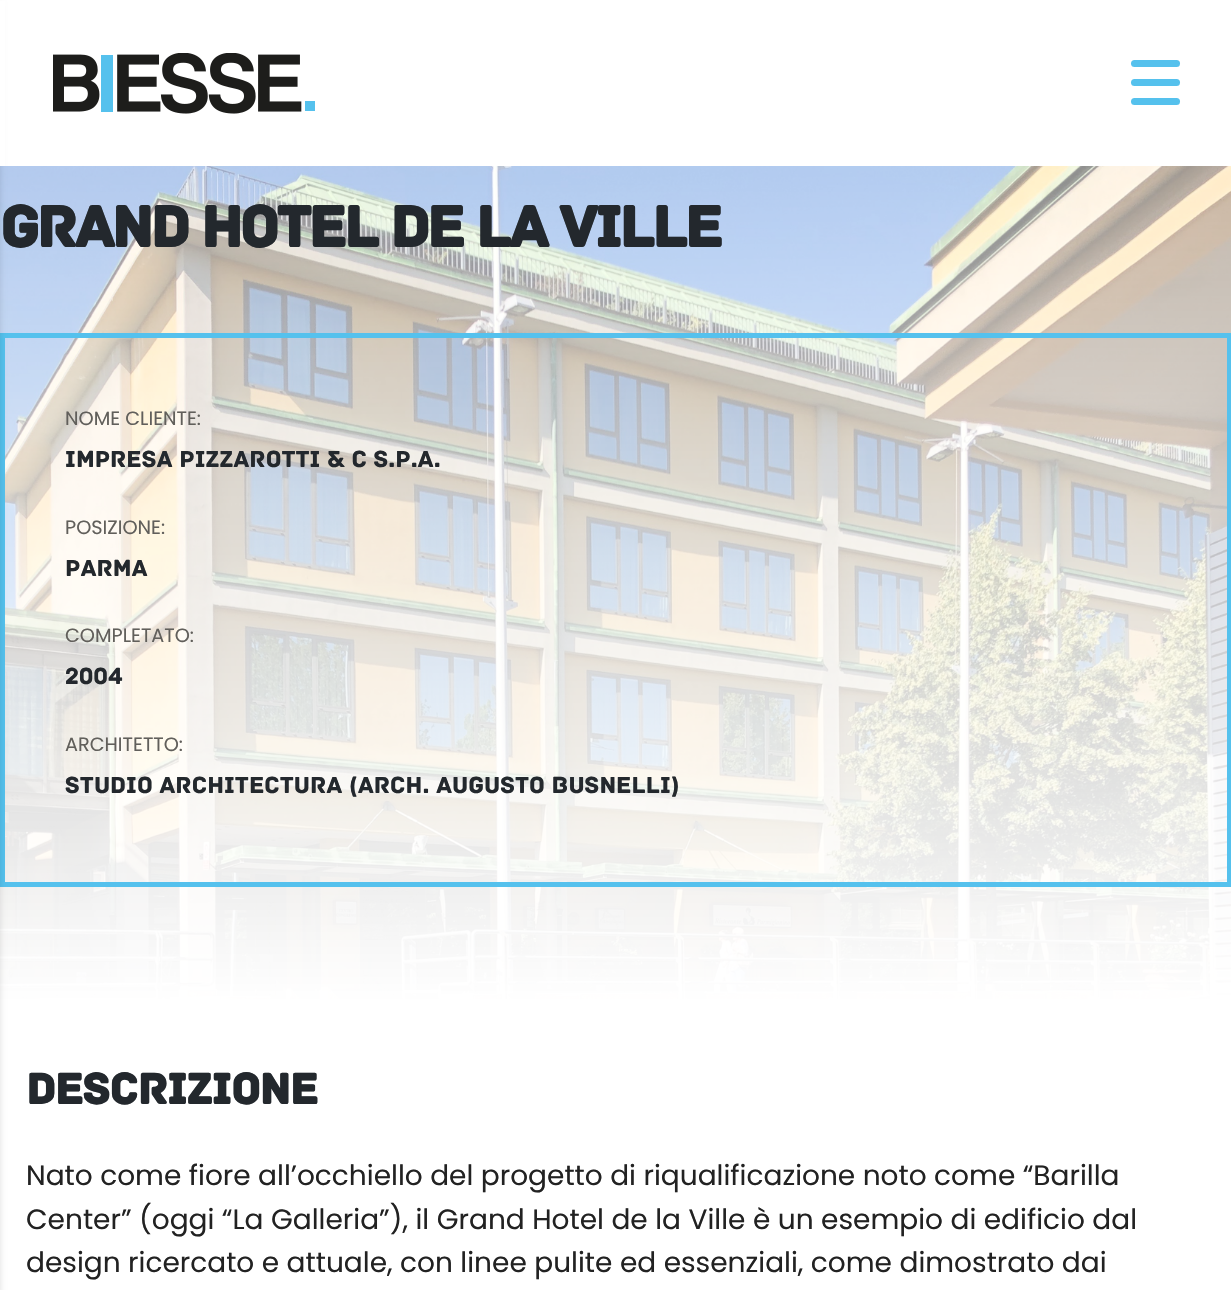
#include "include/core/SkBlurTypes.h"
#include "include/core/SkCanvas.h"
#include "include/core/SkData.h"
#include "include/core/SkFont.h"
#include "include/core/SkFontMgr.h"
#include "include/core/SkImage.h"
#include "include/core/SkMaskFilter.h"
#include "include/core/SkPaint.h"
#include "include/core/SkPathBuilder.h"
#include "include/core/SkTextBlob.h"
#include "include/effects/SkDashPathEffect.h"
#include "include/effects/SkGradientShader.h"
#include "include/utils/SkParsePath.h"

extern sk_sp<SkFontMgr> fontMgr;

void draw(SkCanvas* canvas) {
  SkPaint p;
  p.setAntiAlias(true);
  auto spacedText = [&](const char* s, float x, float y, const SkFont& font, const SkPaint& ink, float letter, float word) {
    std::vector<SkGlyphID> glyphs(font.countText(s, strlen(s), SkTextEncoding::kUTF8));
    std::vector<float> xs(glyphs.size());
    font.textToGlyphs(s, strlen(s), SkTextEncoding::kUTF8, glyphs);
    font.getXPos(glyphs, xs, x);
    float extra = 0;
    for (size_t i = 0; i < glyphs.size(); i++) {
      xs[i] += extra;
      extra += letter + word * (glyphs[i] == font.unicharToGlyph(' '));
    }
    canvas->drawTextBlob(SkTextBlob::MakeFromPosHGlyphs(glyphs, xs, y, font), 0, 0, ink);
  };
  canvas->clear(SK_ColorWHITE);
  canvas->drawImageRect(SkImages::DeferredFromEncodedData(SkData::MakeFromFileName("images/2.png")), SkRect::MakeLTRB(0, 166, 1231, 999), SkSamplingOptions());
  {
    const SkColor colors[] = {SkColorSetARGB(128, 255, 255, 255), SK_ColorWHITE};
    const float stops[] = {0, 1};
    const SkPoint ends[] = {{616, 70}, {616, 1010}};
    p.setShader(SkGradientShader::MakeLinear(ends, colors, stops, 2, SkTileMode::kClamp));
    p.setAlpha(255);
  }
  canvas->drawRect(SkRect::MakeLTRB(0, 166, 1231, 999), p);
  p.setStyle(SkPaint::kStroke_Style);
  p.setStrokeWidth(5);
  p.setShader(nullptr);
  p.setColor(SkColorSetRGB(85, 193, 237));
  canvas->drawRect(SkRect::MakeLTRB(2.5f, 335.5f, 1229.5f, 884.5f), p);
  p.setStyle(SkPaint::kFill_Style);
  p.setColor(SkColorSetARGB(51, 0, 0, 0));
  p.setMaskFilter(SkMaskFilter::MakeBlur(kNormal_SkBlurStyle, 4.5f));
  canvas->drawRect(SkRect::MakeLTRB(-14, 5, -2, 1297), p);
  p.setMaskFilter(nullptr);
  p.setColor(SK_ColorWHITE);
  canvas->drawRect(SkRect::MakeLTRB(0, 1, 5, 166), p);
  canvas->drawImageRect(SkImages::DeferredFromEncodedData(SkData::MakeFromFileName("images/1.png")), SkRect::MakeLTRB(53, 53, 315, 114), SkSamplingOptions());
  p.setColor(SkColorSetRGB(85, 193, 237));
  canvas->drawRoundRect(SkRect::MakeLTRB(1131, 60, 1180, 67), 3.5f, 3.5f, p);
  canvas->drawRoundRect(SkRect::MakeLTRB(1131, 79, 1180, 86), 3.5f, 3.5f, p);
  canvas->drawRoundRect(SkRect::MakeLTRB(1131, 98, 1180, 105), 3.5f, 3.5f, p);
  SkFont font1(fontMgr->matchFamilyStyle("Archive", SkFontStyle::Bold()), 61.25f);
  font1.setSubpixel(true);
  p.setColor(SkColorSetRGB(35, 40, 45));
  spacedText("GRAND HOTEL DE LA VILLE", 0, 247, font1, p, -3, 0);
  SkFont font2(fontMgr->matchFamilyStyle("Poppins", SkFontStyle::Normal()), 19.25f);
  font2.setSubpixel(true);
  p.setColor(SkColorSetRGB(97, 95, 91));
  canvas->drawString("NOME CLIENTE:", 65, 425, font2, p);
  SkFont font3(fontMgr->matchFamilyStyle("Archive", SkFontStyle::Normal()), 24.5f);
  font3.setSubpixel(true);
  p.setColor(SkColorSetRGB(35, 40, 45));
  canvas->drawString("Impresa Pizzarotti & C S.p.A.", 65, 467, font3, p);
  p.setColor(SkColorSetRGB(97, 95, 91));
  canvas->drawString("POSIZIONE:", 65, 534, font2, p);
  p.setColor(SkColorSetRGB(35, 40, 45));
  canvas->drawString("Parma", 65, 576, font3, p);
  p.setColor(SkColorSetRGB(97, 95, 91));
  canvas->drawString("COMPLETATO:", 65, 642, font2, p);
  p.setColor(SkColorSetRGB(35, 40, 45));
  canvas->drawString("2004", 65, 684, font3, p);
  p.setColor(SkColorSetRGB(97, 95, 91));
  canvas->drawString("ARCHITETTO:", 65, 751, font2, p);
  p.setColor(SkColorSetRGB(35, 40, 45));
  canvas->drawString("Studio Architectura (Arch. Augusto Busnelli)", 65, 793, font3, p);
  SkFont font4(fontMgr->matchFamilyStyle("Archive", SkFontStyle::Bold()), 45.5f);
  font4.setSubpixel(true);
  spacedText("DESCRIZIONE", 26, 1104, font4, p, -0.75f, 0);
  SkFont font5(fontMgr->matchFamilyStyle("Poppins", SkFontStyle::Normal()), 28);
  font5.setSubpixel(true);
  p.setColor(SkColorSetRGB(34, 34, 34));
  canvas->drawString("Nato come fiore all’occhiello del progetto di riqualificazione noto come “Barilla", 26, 1185, font5, p);
  canvas->drawString("Center” (oggi “La Galleria”), il Grand Hotel de la Ville è un esempio di edificio dal", 26, 1229, font5, p);
  canvas->drawString("design ricercato e attuale, con linee pulite ed essenziali, come dimostrato dai", 26, 1272, font5, p);
}
